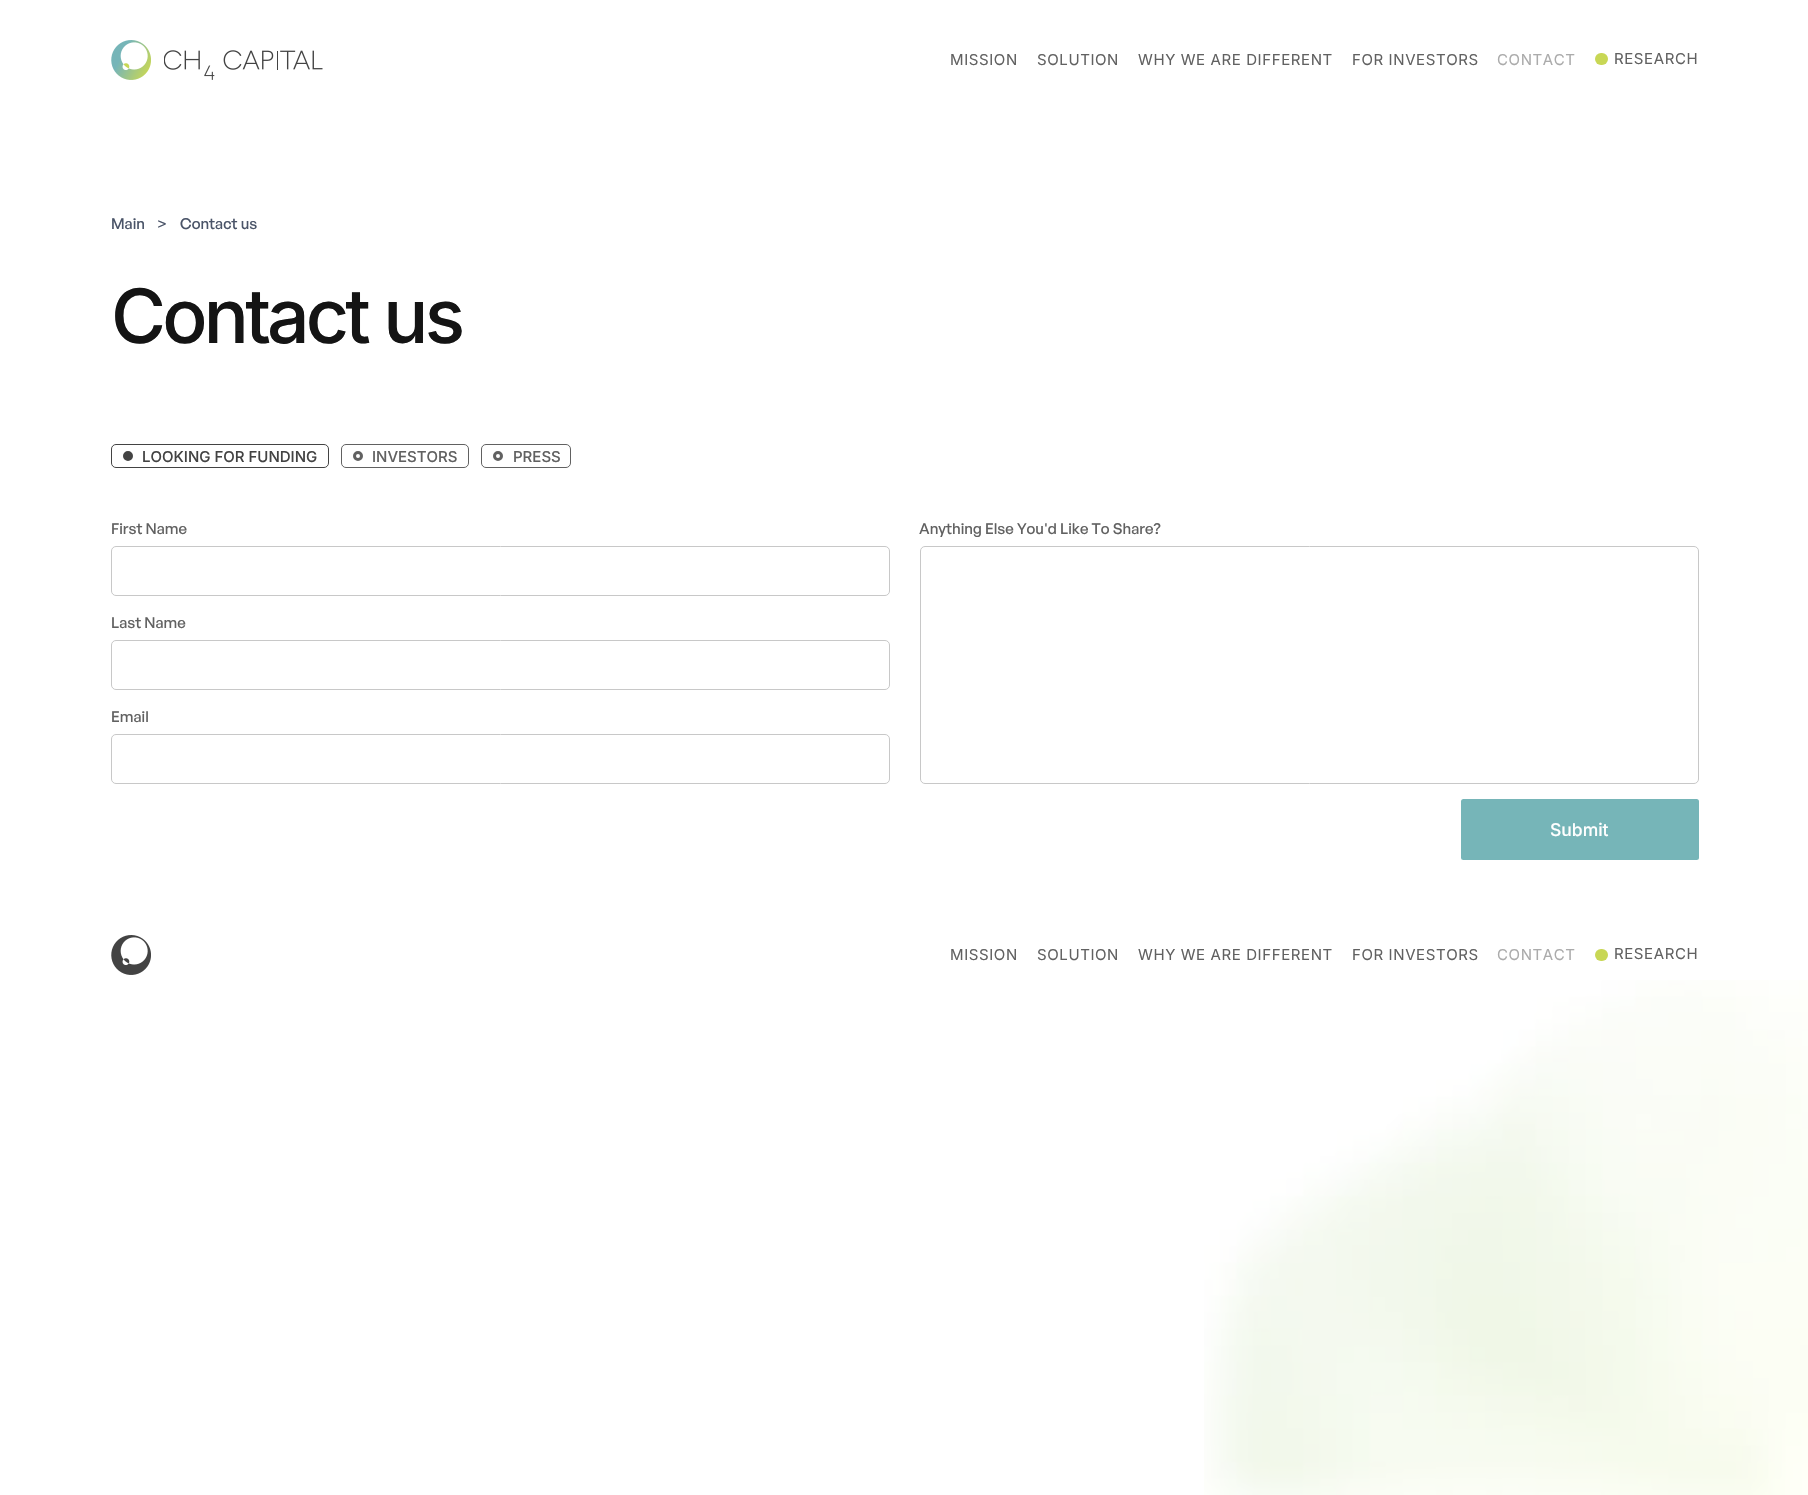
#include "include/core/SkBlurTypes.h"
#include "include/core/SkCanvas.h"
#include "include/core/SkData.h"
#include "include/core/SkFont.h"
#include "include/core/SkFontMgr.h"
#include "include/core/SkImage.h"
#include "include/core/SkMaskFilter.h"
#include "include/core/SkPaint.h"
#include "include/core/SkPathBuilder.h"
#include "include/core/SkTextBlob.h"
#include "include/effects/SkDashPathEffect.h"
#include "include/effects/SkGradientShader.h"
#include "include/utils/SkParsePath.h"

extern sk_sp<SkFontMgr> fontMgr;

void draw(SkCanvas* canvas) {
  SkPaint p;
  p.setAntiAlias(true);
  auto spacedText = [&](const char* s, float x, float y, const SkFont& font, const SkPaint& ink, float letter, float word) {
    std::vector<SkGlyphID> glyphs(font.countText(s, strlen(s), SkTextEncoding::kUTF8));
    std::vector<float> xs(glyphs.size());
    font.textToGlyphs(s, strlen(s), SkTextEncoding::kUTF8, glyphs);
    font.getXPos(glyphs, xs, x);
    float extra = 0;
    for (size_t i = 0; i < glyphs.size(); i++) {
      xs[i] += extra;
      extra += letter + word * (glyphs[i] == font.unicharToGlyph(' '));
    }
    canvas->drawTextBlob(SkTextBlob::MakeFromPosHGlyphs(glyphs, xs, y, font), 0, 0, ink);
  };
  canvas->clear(SK_ColorWHITE);
  canvas->drawImageRect(SkImages::DeferredFromEncodedData(SkData::MakeFromFileName("images/1.png")), SkRect::MakeLTRB(111, 40, 151, 80), SkSamplingOptions());
  canvas->drawImageRect(SkImages::DeferredFromEncodedData(SkData::MakeFromFileName("images/2.png")), SkRect::MakeLTRB(164, 50, 323, 80), SkSamplingOptions());
  p.setColor(SkColorSetRGB(200, 215, 85));
  canvas->drawRoundRect(SkRect::MakeLTRB(1595, 53, 1608, 65), 6, 6, p);
  p.setStyle(SkPaint::kStroke_Style);
  p.setStrokeWidth(1);
  p.setColor(SkColorSetRGB(67, 67, 67));
  canvas->drawRoundRect(SkRect::MakeLTRB(111.5f, 444.5f, 328.5f, 467.5f), 4.5f, 4.5f, p);
  p.setStyle(SkPaint::kFill_Style);
  canvas->drawCircle(128, 456, 3.5f, p);
  p.setStyle(SkPaint::kStroke_Style);
  p.setStrokeWidth(3);
  canvas->drawCircle(128, 456, 3.5f, p);
  p.setStrokeWidth(1);
  p.setColor(SkColorSetRGB(97, 97, 97));
  canvas->drawRoundRect(SkRect::MakeLTRB(341.5f, 444.5f, 468.5f, 467.5f), 4.5f, 4.5f, p);
  p.setStrokeWidth(3);
  canvas->drawCircle(358, 456, 3.5f, p);
  p.setStrokeWidth(1);
  canvas->drawRoundRect(SkRect::MakeLTRB(481.5f, 444.5f, 570.5f, 467.5f), 4.5f, 4.5f, p);
  p.setStrokeWidth(3);
  canvas->drawCircle(498, 456, 3.5f, p);
  p.setStrokeWidth(1);
  p.setColor(SkColorSetRGB(200, 200, 200));
  canvas->drawRoundRect(SkRect::MakeLTRB(111.5f, 546.5f, 889.5f, 595.5f), 4.5f, 4.5f, p);
  canvas->drawRoundRect(SkRect::MakeLTRB(111.5f, 640.5f, 889.5f, 689.5f), 4.5f, 4.5f, p);
  canvas->drawRoundRect(SkRect::MakeLTRB(111.5f, 734.5f, 889.5f, 783.5f), 4.5f, 4.5f, p);
  canvas->drawRoundRect(SkRect::MakeLTRB(920.5f, 546.5f, 1698.5f, 783.5f), 4.5f, 4.5f, p);
  p.setStyle(SkPaint::kFill_Style);
  p.setColor(SkColorSetRGB(118, 181, 184));
  canvas->drawRoundRect(SkRect::MakeLTRB(1461, 799, 1699, 860), 2.5f, 2.5f, p);
  canvas->drawImageRect(SkImages::DeferredFromEncodedData(SkData::MakeFromFileName("images/3.png")), SkRect::MakeLTRB(111, 935, 151, 975), SkSamplingOptions());
  p.setColor(SkColorSetRGB(200, 215, 85));
  canvas->drawRoundRect(SkRect::MakeLTRB(1595, 949, 1608, 961), 6, 6, p);
  canvas->drawImageRect(SkImages::DeferredFromEncodedData(SkData::MakeFromFileName("images/4.png")), SkRect::MakeLTRB(1204, 980, 1808, 1495), SkSamplingOptions());
  SkFont font1(fontMgr->matchFamilyStyle("Inter", SkFontStyle::Normal()), 15);
  font1.setSubpixel(true);
  p.setColor(SkColorSetRGB(97, 97, 97));
  spacedText("MISSION", 950, 65, font1, p, 0.6f, 0);
  spacedText("SOLUTION", 1037, 65, font1, p, 0.6f, 0);
  spacedText("WHY WE ARE DIFFERENT", 1138, 65, font1, p, 0.6f, 0);
  spacedText("FOR INVESTORS", 1352, 65, font1, p, 0.6f, 0);
  p.setColor(SkColorSetRGB(171, 171, 171));
  spacedText("CONTACT", 1497, 65, font1, p, 0.6f, 0);
  p.setColor(SkColorSetRGB(97, 97, 97));
  spacedText("RESEARCH", 1614, 64, font1, p, 0.6f, 0);
  SkFont font2(fontMgr->matchFamilyStyle("General Sans", SkFontStyle(500, SkFontStyle::kNormal_Width, SkFontStyle::kUpright_Slant)), 15);
  font2.setSubpixel(true);
  p.setColor(SkColorSetRGB(74, 84, 104));
  canvas->drawString("Main", 111, 229, font2, p);
  canvas->drawString(">", 157, 229, font2, p);
  canvas->drawString("Contact us", 180, 229, font2, p);
  SkFont font3(fontMgr->matchFamilyStyle("Inter", SkFontStyle(500, SkFontStyle::kNormal_Width, SkFontStyle::kUpright_Slant)), 75);
  font3.setSubpixel(true);
  p.setColor(SkColorSetRGB(20, 20, 20));
  spacedText("Contact us", 111, 343, font3, p, -3.75f, 0);
  SkFont font4(fontMgr->matchFamilyStyle("Inter", SkFontStyle(500, SkFontStyle::kNormal_Width, SkFontStyle::kUpright_Slant)), 15);
  font4.setSubpixel(true);
  p.setColor(SkColorSetRGB(67, 67, 67));
  canvas->drawString("LOOKING FOR FUNDING", 142, 462, font4, p);
  p.setColor(SkColorSetRGB(97, 97, 97));
  canvas->drawString("INVESTORS", 372, 462, font4, p);
  canvas->drawString("PRESS", 513, 462, font4, p);
  canvas->drawString("First Name", 111, 534, font2, p);
  canvas->drawString("Last Name", 111, 628, font2, p);
  canvas->drawString("Email", 111, 722, font2, p);
  canvas->drawString("Anything Else You'd Like To Share?", 919, 534, font2, p);
  SkFont font5(fontMgr->matchFamilyStyle("Inter", SkFontStyle(500, SkFontStyle::kNormal_Width, SkFontStyle::kUpright_Slant)), 17.5f);
  font5.setSubpixel(true);
  p.setColor(SK_ColorWHITE);
  canvas->drawString("Submit", 1550, 836, font5, p);
  p.setColor(SkColorSetRGB(97, 97, 97));
  spacedText("MISSION", 950, 960, font1, p, 0.6f, 0);
  spacedText("SOLUTION", 1037, 960, font1, p, 0.6f, 0);
  spacedText("WHY WE ARE DIFFERENT", 1138, 960, font1, p, 0.6f, 0);
  spacedText("FOR INVESTORS", 1352, 960, font1, p, 0.6f, 0);
  p.setColor(SkColorSetRGB(171, 171, 171));
  spacedText("CONTACT", 1497, 960, font1, p, 0.6f, 0);
  p.setColor(SkColorSetRGB(97, 97, 97));
  spacedText("RESEARCH", 1614, 959, font1, p, 0.6f, 0);
}
